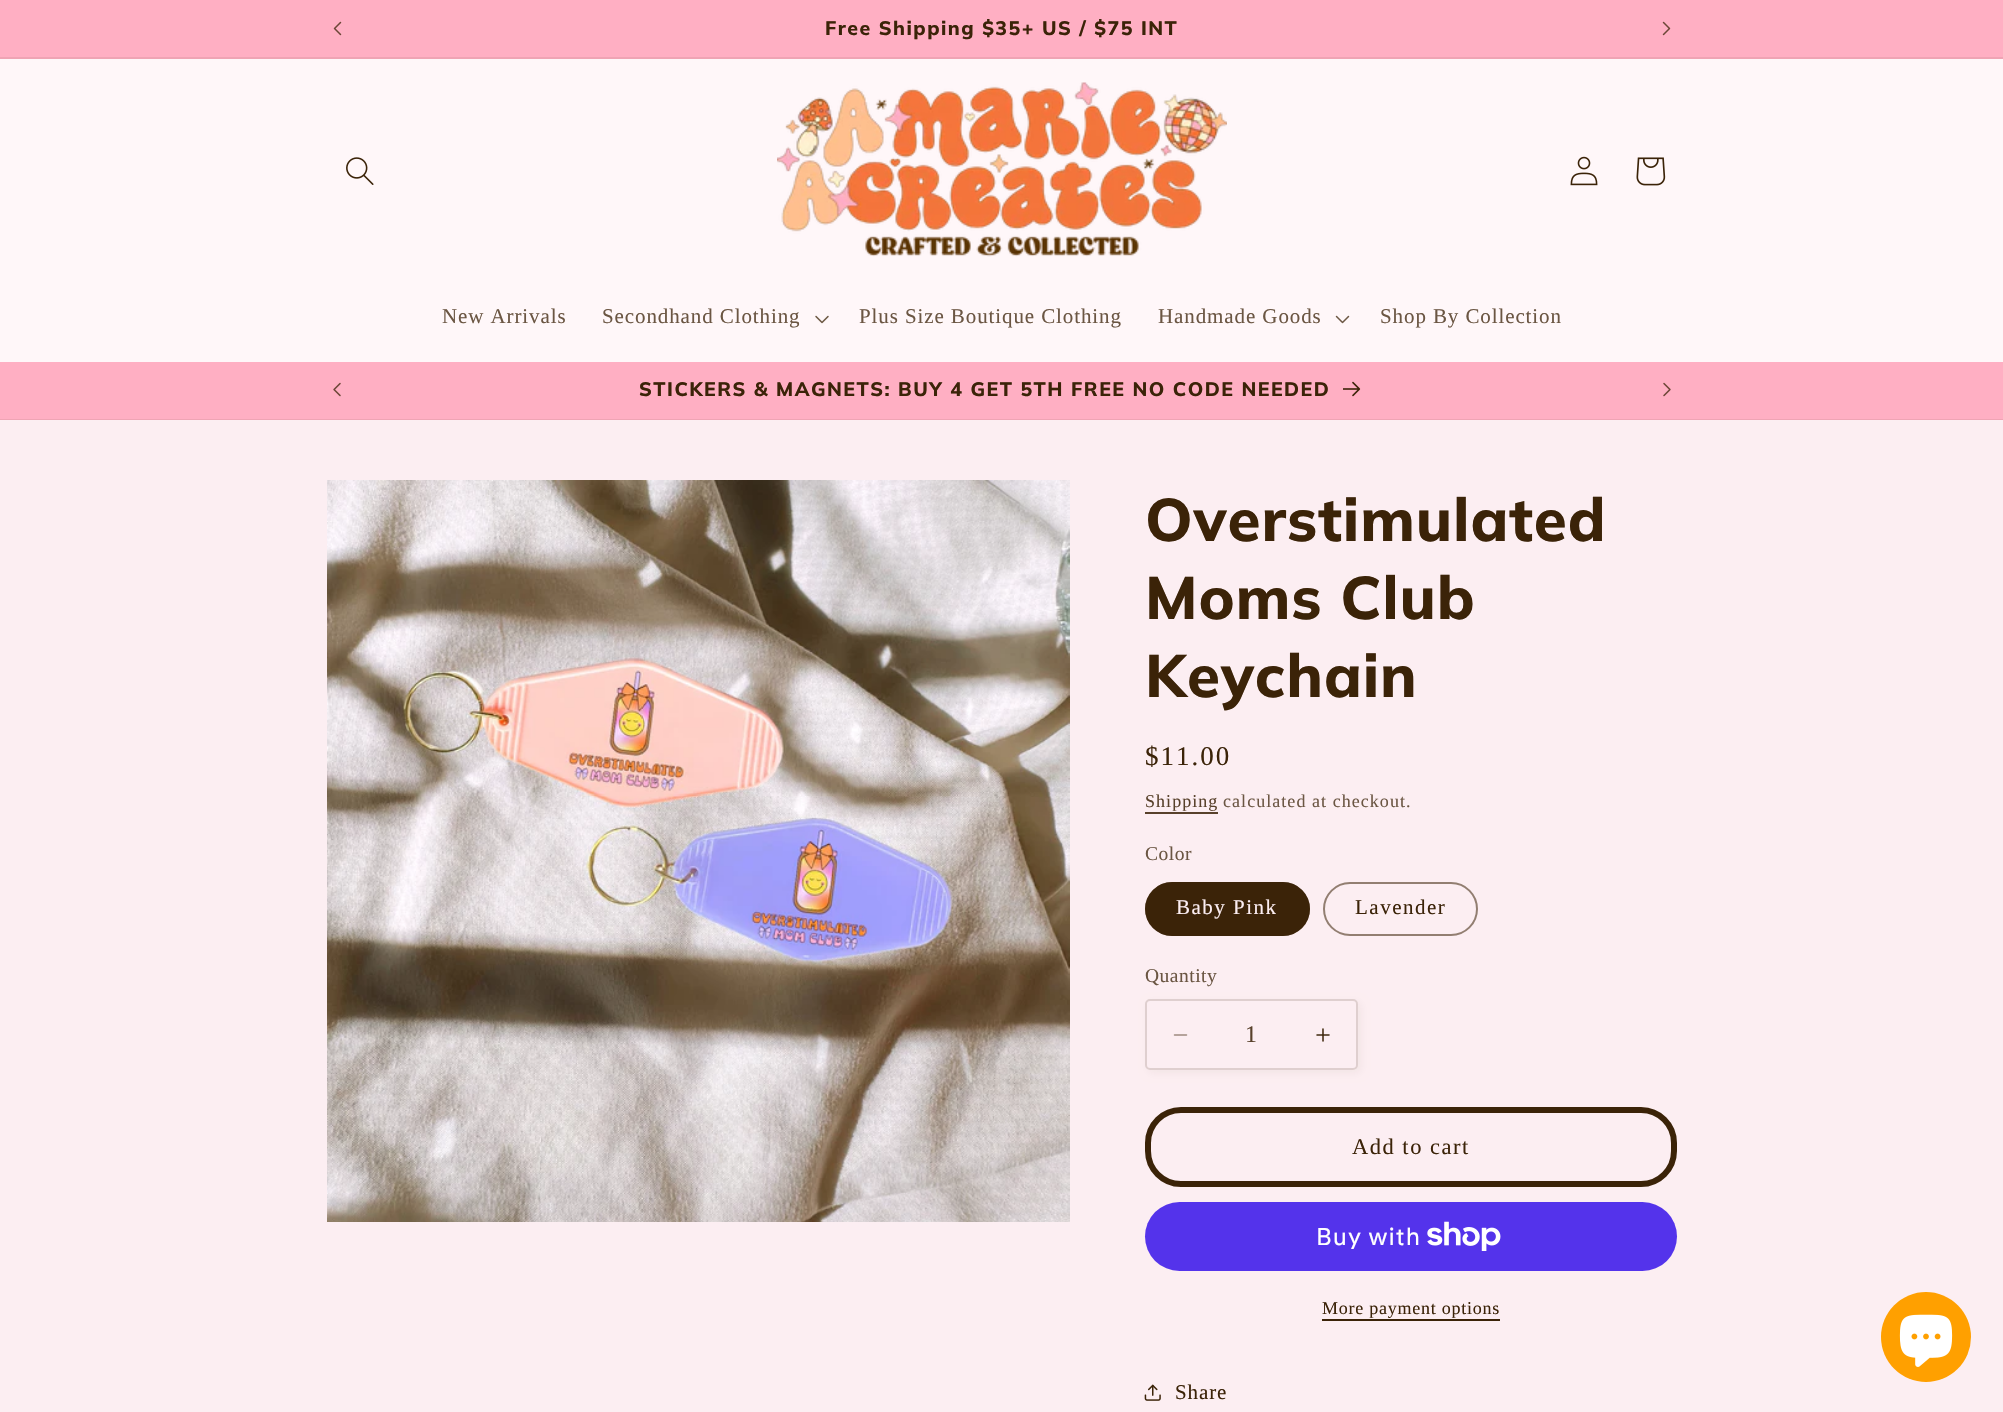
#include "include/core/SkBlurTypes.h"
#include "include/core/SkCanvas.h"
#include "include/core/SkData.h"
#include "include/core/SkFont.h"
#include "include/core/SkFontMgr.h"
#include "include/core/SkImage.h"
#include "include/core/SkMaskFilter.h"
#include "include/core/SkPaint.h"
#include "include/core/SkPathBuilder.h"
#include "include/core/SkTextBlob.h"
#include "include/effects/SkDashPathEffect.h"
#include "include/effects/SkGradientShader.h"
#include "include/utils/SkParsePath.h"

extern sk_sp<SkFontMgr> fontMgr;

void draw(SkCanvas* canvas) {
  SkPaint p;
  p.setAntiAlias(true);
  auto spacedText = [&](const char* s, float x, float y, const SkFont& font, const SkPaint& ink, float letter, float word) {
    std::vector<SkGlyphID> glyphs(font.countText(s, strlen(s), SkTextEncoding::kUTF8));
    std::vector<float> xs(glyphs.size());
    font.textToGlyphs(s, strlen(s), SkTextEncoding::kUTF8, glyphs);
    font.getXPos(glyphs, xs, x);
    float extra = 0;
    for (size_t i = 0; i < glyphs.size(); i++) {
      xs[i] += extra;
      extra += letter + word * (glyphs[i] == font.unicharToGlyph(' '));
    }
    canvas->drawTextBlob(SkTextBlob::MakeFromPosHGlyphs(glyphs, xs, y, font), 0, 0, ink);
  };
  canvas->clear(SkColorSetRGB(255, 175, 195));
  p.setColor(SkColorSetRGB(239, 164, 180));
  canvas->drawRect(SkRect::MakeLTRB(0, 57, 2003, 59), p);
  canvas->drawImageRect(SkImages::DeferredFromEncodedData(SkData::MakeFromFileName("images/1.png")), SkRect::MakeLTRB(333, 21, 342, 36), SkSamplingOptions());
  canvas->drawImageRect(SkImages::DeferredFromEncodedData(SkData::MakeFromFileName("images/2.png")), SkRect::MakeLTRB(1662, 21, 1671, 36), SkSamplingOptions());
  p.setColor(SkColorSetRGB(255, 247, 249));
  canvas->drawRect(SkRect::MakeLTRB(0, 59, 2003, 362), p);
  canvas->drawImageRect(SkImages::DeferredFromEncodedData(SkData::MakeFromFileName("images/3.png")), SkRect::MakeLTRB(346, 157, 374, 185), SkSamplingOptions());
  canvas->drawImageRect(SkImages::DeferredFromEncodedData(SkData::MakeFromFileName("images/4.png")), SkRect::MakeLTRB(777, 82, 1227, 257), SkSamplingOptions());
  canvas->drawImageRect(SkImages::DeferredFromEncodedData(SkData::MakeFromFileName("images/5.png")), SkRect::MakeLTRB(1570, 156, 1598, 186), SkSamplingOptions());
  canvas->drawImageRect(SkImages::DeferredFromEncodedData(SkData::MakeFromFileName("images/6.png")), SkRect::MakeLTRB(1636, 157, 1666, 186), SkSamplingOptions());
  canvas->drawImageRect(SkImages::DeferredFromEncodedData(SkData::MakeFromFileName("images/7.png")), SkRect::MakeLTRB(815, 315, 829, 324), SkSamplingOptions());
  canvas->drawImageRect(SkImages::DeferredFromEncodedData(SkData::MakeFromFileName("images/8.png")), SkRect::MakeLTRB(1335, 315, 1350, 324), SkSamplingOptions());
  p.setColor(SkColorSetRGB(239, 164, 180));
  canvas->drawRect(SkRect::MakeLTRB(0, 419, 2003, 420), p);
  canvas->drawImageRect(SkImages::DeferredFromEncodedData(SkData::MakeFromFileName("images/9.png")), SkRect::MakeLTRB(333, 382, 341, 397), SkSamplingOptions());
  canvas->drawImageRect(SkImages::DeferredFromEncodedData(SkData::MakeFromFileName("images/10.png")), SkRect::MakeLTRB(1343, 381, 1361, 397), SkSamplingOptions());
  canvas->drawImageRect(SkImages::DeferredFromEncodedData(SkData::MakeFromFileName("images/11.png")), SkRect::MakeLTRB(1663, 382, 1671, 397), SkSamplingOptions());
  p.setColor(SkColorSetRGB(252, 238, 242));
  canvas->drawRect(SkRect::MakeLTRB(0, 420, 2003, 1412), p);
  canvas->drawImageRect(SkImages::DeferredFromEncodedData(SkData::MakeFromFileName("images/12.png")), SkRect::MakeLTRB(327, 480, 1070, 1222), SkSamplingOptions());
  p.setColor(SkColorSetRGB(88, 65, 43));
  canvas->drawRect(SkRect::MakeLTRB(1145, 812, 1218, 814), p);
  p.setColor(SkColorSetRGB(59, 35, 8));
  canvas->drawRoundRect(SkRect::MakeLTRB(1145, 882, 1310, 936), 27, 27, p);
  p.setStyle(SkPaint::kStroke_Style);
  p.setStrokeWidth(2);
  p.setColor(SkColorSetARGB(140, 59, 35, 8));
  canvas->drawRoundRect(SkRect::MakeLTRB(1146, 883, 1309, 935), 26, 26, p);
  p.setColor(SkColorSetRGB(146, 126, 113));
  canvas->drawRoundRect(SkRect::MakeLTRB(1324, 883, 1477, 935), 26, 26, p);
  p.setStyle(SkPaint::kFill_Style);
  p.setColor(SkColorSetARGB(13, 59, 35, 8));
  p.setMaskFilter(SkMaskFilter::MakeBlur(kNormal_SkBlurStyle, 4));
  canvas->drawRoundRect(SkRect::MakeLTRB(1148, 1002, 1361, 1073), 5, 5, p);
  p.setMaskFilter(nullptr);
  p.setColor(SkColorSetRGB(252, 238, 242));
  canvas->drawRoundRect(SkRect::MakeLTRB(1145, 999, 1358, 1070), 5, 5, p);
  canvas->drawImageRect(SkImages::DeferredFromEncodedData(SkData::MakeFromFileName("images/13.png")), SkRect::MakeLTRB(1173, 1034, 1188, 1036), SkSamplingOptions());
  canvas->drawImageRect(SkImages::DeferredFromEncodedData(SkData::MakeFromFileName("images/14.png")), SkRect::MakeLTRB(1316, 1028, 1330, 1042), SkSamplingOptions());
  p.setStyle(SkPaint::kStroke_Style);
  p.setColor(SkColorSetARGB(38, 59, 35, 8));
  canvas->drawRoundRect(SkRect::MakeLTRB(1146, 1000, 1357, 1069), 4, 4, p);
  p.setStrokeWidth(6);
  p.setColor(SkColorSetRGB(59, 35, 8));
  canvas->drawRoundRect(SkRect::MakeLTRB(1148, 1110, 1674, 1184), 33, 33, p);
  p.setStyle(SkPaint::kFill_Style);
  p.setColor(SkColorSetRGB(84, 51, 235));
  canvas->drawRoundRect(SkRect::MakeLTRB(1145, 1202, 1677, 1271), 34.5f, 34.5f, p);
  canvas->drawImageRect(SkImages::DeferredFromEncodedData(SkData::MakeFromFileName("images/15.png")), SkRect::MakeLTRB(1427, 1221, 1501, 1251), SkSamplingOptions());
  p.setColor(SkColorSetRGB(59, 35, 8));
  canvas->drawRect(SkRect::MakeLTRB(1322, 1319, 1500, 1321), p);
  canvas->drawImageRect(SkImages::DeferredFromEncodedData(SkData::MakeFromFileName("images/16.png")), SkRect::MakeLTRB(1144, 1384, 1161, 1401), SkSamplingOptions());
  p.setColor(SkColorSetRGB(255, 160, 0));
  canvas->drawCircle(1926, 1337, 45, p);
  canvas->drawImageRect(SkImages::DeferredFromEncodedData(SkData::MakeFromFileName("images/17.png")), SkRect::MakeLTRB(1899, 1314, 1953, 1367), SkSamplingOptions());
  SkFont font1(fontMgr->matchFamilyStyle("Muli", SkFontStyle(800, SkFontStyle::kNormal_Width, SkFontStyle::kUpright_Slant)), 19.5f);
  font1.setSubpixel(true);
  p.setColor(SkColorSetRGB(59, 35, 8));
  spacedText("Free Shipping $35+ US / $75 INT", 825, 35, font1, p, 1.5f, 0);
  SkFont font2(fontMgr->matchFamilyStyle("Liberation Serif", SkFontStyle::Normal()), 21);
  font2.setSubpixel(true);
  p.setColor(SkColorSetRGB(107, 86, 67));
  spacedText("New Arrivals", 442, 323, font2, p, 0.9f, 0);
  spacedText("Secondhand Clothing", 602, 323, font2, p, 0.9f, 0);
  spacedText("Plus Size Boutique Clothing", 859, 323, font2, p, 0.9f, 0);
  spacedText("Handmade Goods", 1158, 323, font2, p, 0.9f, 0);
  spacedText("Shop By Collection", 1380, 323, font2, p, 0.9f, 0);
  p.setColor(SkColorSetRGB(59, 35, 8));
  spacedText("STICKERS & MAGNETS: BUY 4 GET 5TH FREE NO CODE NEEDED", 639, 396, font1, p, 1.5f, 0);
  SkFont font3(fontMgr->matchFamilyStyle("Muli", SkFontStyle(800, SkFontStyle::kNormal_Width, SkFontStyle::kUpright_Slant)), 60);
  font3.setSubpixel(true);
  spacedText("Overstimulated", 1145, 541, font3, p, 0.9f, 0);
  spacedText("Moms Club", 1145, 619, font3, p, 0.9f, 0);
  spacedText("Keychain", 1145, 697, font3, p, 0.9f, 0);
  SkFont font4(fontMgr->matchFamilyStyle("Liberation Serif", SkFontStyle::Normal()), 27);
  font4.setSubpixel(true);
  spacedText("$11.00", 1145, 765, font4, p, 2, 0);
  SkFont font5(fontMgr->matchFamilyStyle("Liberation Serif", SkFontStyle::Normal()), 18);
  font5.setSubpixel(true);
  p.setColor(SkColorSetRGB(88, 65, 43));
  spacedText("Shipping", 1145, 807, font5, p, 1.05f, 0);
  p.setColor(SkColorSetRGB(107, 86, 67));
  spacedText("calculated at checkout.", 1223, 807, font5, p, 1.05f, 0);
  SkFont font6(fontMgr->matchFamilyStyle("Liberation Serif", SkFontStyle::Normal()), 19.5f);
  font6.setSubpixel(true);
  spacedText("Color", 1145, 860, font6, p, 0.5f, 0);
  p.setColor(SkColorSetRGB(252, 238, 242));
  spacedText("Baby Pink", 1176, 914, font2, p, 1.5f, 0);
  p.setColor(SkColorSetRGB(59, 35, 8));
  spacedText("Lavender", 1355, 914, font2, p, 1.5f, 0);
  p.setColor(SkColorSetRGB(107, 86, 67));
  spacedText("Quantity", 1145, 982, font6, p, 0.5f, 0);
  SkFont font7(fontMgr->matchFamilyStyle("Liberation Serif", SkFontStyle::Normal()), 24);
  font7.setSubpixel(true);
  p.setColor(SkColorSetRGB(88, 65, 43));
  canvas->drawString("1", 1245, 1042, font7, p);
  SkFont font8(fontMgr->matchFamilyStyle("Liberation Serif", SkFontStyle::Normal()), 22.5f);
  font8.setSubpixel(true);
  p.setColor(SkColorSetRGB(59, 35, 8));
  spacedText("Add to cart", 1352, 1154, font8, p, 1.5f, 0);
  SkFont font9(fontMgr->matchFamilyStyle("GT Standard", SkFontStyle::Normal()), 24);
  font9.setSubpixel(true);
  p.setColor(SK_ColorWHITE);
  spacedText("Buy with", 1316, 1245, font9, p, 0.9f, 0);
  p.setColor(SkColorSetRGB(59, 35, 8));
  spacedText("More payment options", 1322, 1314, font5, p, 0.75f, 0);
  spacedText("Share", 1175, 1399, font2, p, 0.9f, 0);
}
